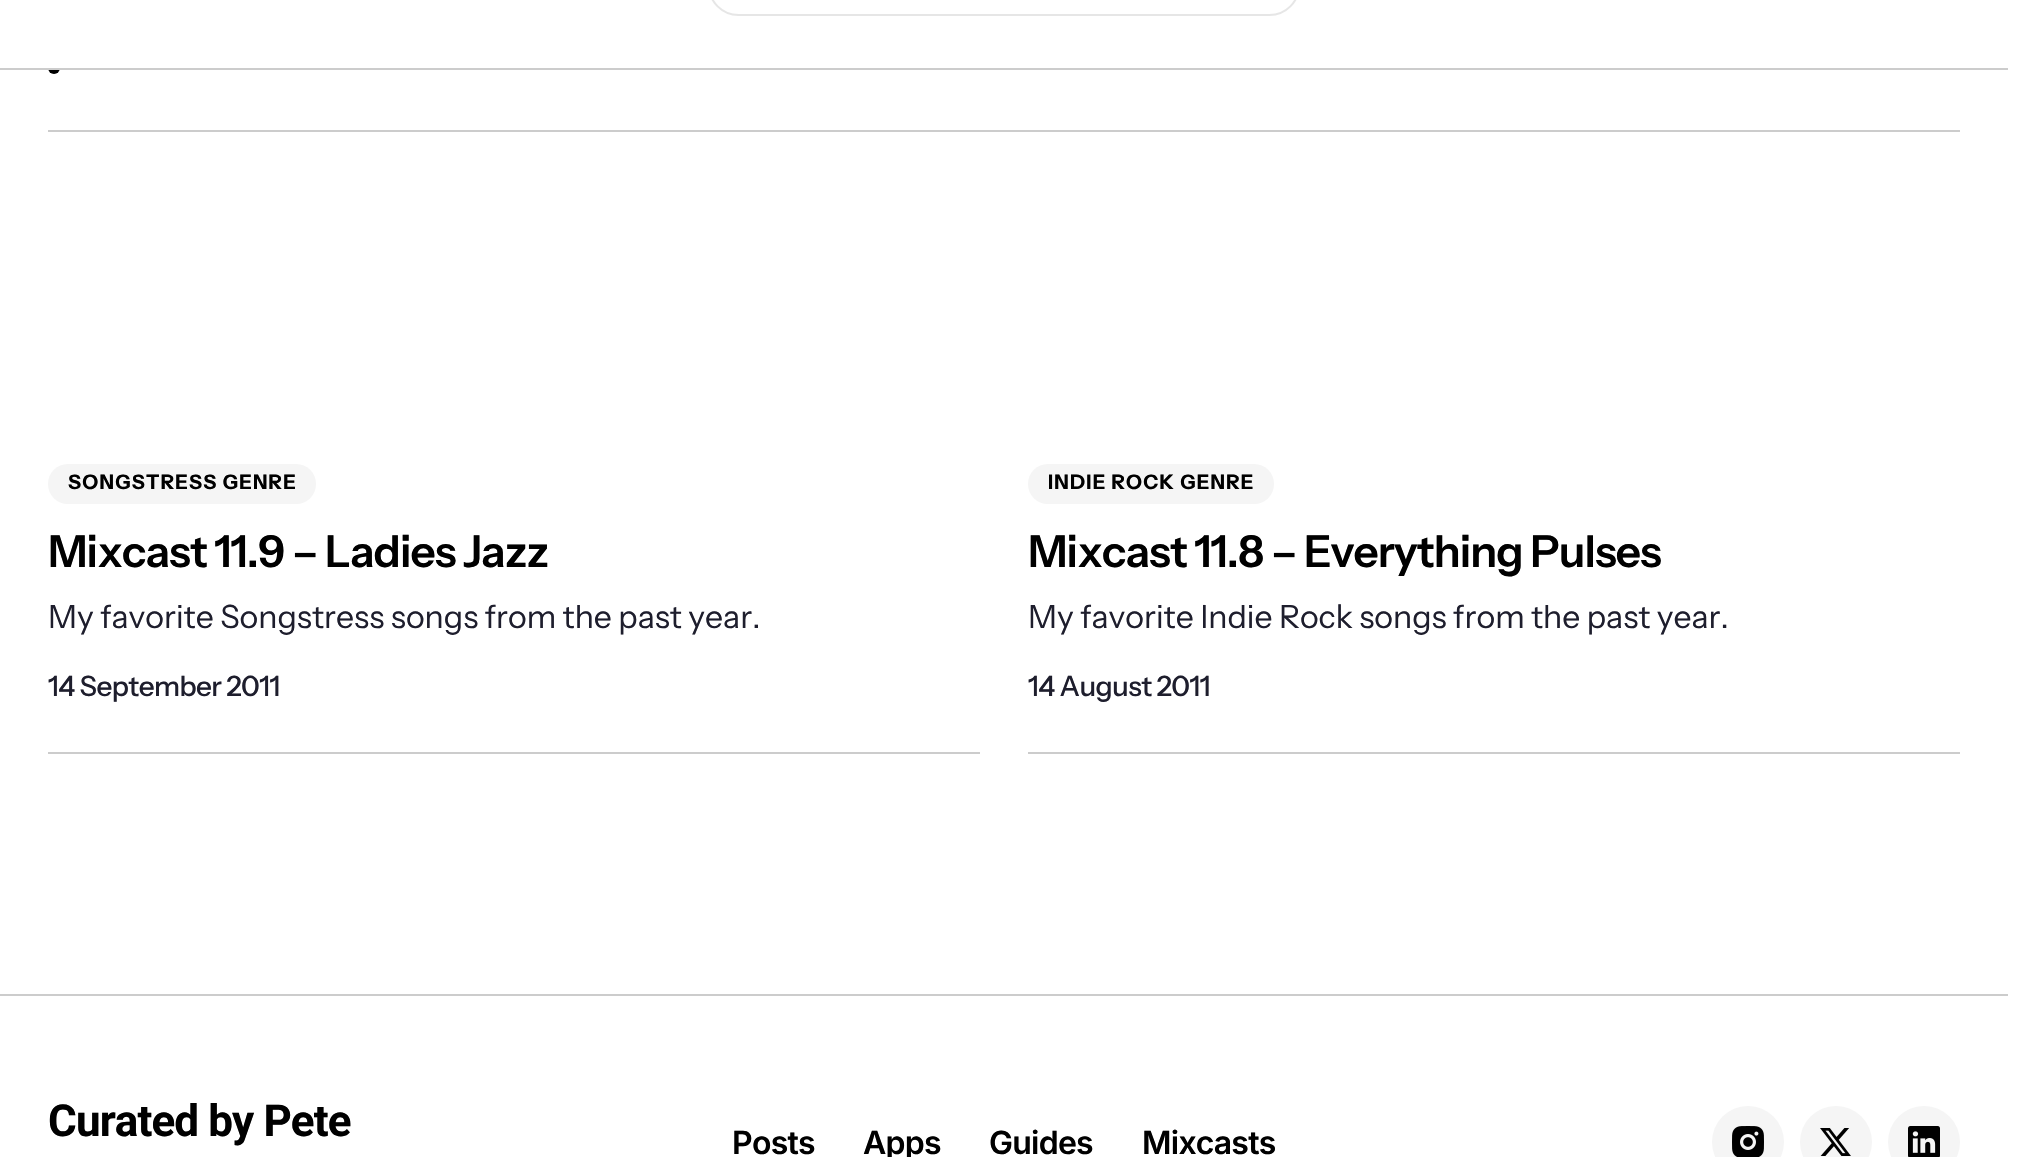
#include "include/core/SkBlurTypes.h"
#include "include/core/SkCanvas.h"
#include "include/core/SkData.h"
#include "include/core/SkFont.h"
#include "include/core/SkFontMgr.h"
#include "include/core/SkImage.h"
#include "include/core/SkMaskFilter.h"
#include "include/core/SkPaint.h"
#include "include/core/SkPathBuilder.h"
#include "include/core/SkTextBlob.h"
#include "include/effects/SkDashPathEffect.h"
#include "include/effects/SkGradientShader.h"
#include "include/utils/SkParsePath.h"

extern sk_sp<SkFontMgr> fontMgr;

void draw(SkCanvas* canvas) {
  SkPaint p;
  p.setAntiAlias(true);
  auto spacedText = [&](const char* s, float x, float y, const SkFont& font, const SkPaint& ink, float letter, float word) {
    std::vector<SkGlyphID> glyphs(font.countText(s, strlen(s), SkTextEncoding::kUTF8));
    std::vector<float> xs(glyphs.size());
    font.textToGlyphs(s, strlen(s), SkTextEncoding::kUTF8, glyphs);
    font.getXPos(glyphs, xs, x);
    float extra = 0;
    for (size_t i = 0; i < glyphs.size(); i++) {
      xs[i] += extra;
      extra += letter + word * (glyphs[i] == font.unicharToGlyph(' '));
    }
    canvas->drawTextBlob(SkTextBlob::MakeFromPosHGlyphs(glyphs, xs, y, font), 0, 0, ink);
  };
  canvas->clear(SK_ColorWHITE);
  p.setColor(SK_ColorBLACK);
  canvas->drawCircle(54, 68, 6, p);
  p.setColor(SK_ColorWHITE);
  canvas->drawRect(SkRect::MakeLTRB(48, 62, 60, 68), p);
  p.setStyle(SkPaint::kStroke_Style);
  p.setStrokeWidth(2);
  p.setColor(SkColorSetRGB(230, 230, 230));
  canvas->drawRoundRect(SkRect::MakeLTRB(709, -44, 1299, 15), 42, 42, p);
  p.setStyle(SkPaint::kFill_Style);
  p.setColor(SkColorSetRGB(204, 204, 204));
  canvas->drawRect(SkRect::MakeLTRB(0, 68, 2008, 70), p);
  canvas->drawRect(SkRect::MakeLTRB(48, 130, 1960, 132), p);
  canvas->drawRect(SkRect::MakeLTRB(48, 752, 980, 754), p);
  p.setColor(SkColorSetRGB(245, 245, 245));
  canvas->drawRoundRect(SkRect::MakeLTRB(48, 464, 316, 504), 20, 20, p);
  p.setColor(SkColorSetRGB(204, 204, 204));
  canvas->drawRect(SkRect::MakeLTRB(1028, 752, 1960, 754), p);
  p.setColor(SkColorSetRGB(245, 245, 245));
  canvas->drawRoundRect(SkRect::MakeLTRB(1028, 464, 1274, 504), 20, 20, p);
  p.setColor(SkColorSetRGB(204, 204, 204));
  canvas->drawRect(SkRect::MakeLTRB(0, 994, 2008, 996), p);
  p.setColor(SkColorSetRGB(245, 245, 245));
  canvas->drawCircle(1748, 1142, 36, p);
  canvas->drawImageRect(SkImages::DeferredFromEncodedData(SkData::MakeFromFileName("images/1.png")), SkRect::MakeLTRB(1732, 1126, 1764, 1157), SkSamplingOptions());
  canvas->drawCircle(1836, 1142, 36, p);
  canvas->drawImageRect(SkImages::DeferredFromEncodedData(SkData::MakeFromFileName("images/2.png")), SkRect::MakeLTRB(1820, 1128, 1851, 1156), SkSamplingOptions());
  canvas->drawCircle(1924, 1142, 36, p);
  canvas->drawImageRect(SkImages::DeferredFromEncodedData(SkData::MakeFromFileName("images/3.png")), SkRect::MakeLTRB(1908, 1126, 1940, 1157), SkSamplingOptions());
  SkFont font1(fontMgr->matchFamilyStyle("Instrument Sans", SkFontStyle::Bold()), 20);
  font1.setSubpixel(true);
  p.setColor(SK_ColorBLACK);
  spacedText("SONGSTRESS GENRE", 68, 489, font1, p, 1.25f, 0);
  SkFont font2(fontMgr->matchFamilyStyle("Instrument Sans", SkFontStyle(600, SkFontStyle::kNormal_Width, SkFontStyle::kUpright_Slant)), 44);
  font2.setSubpixel(true);
  spacedText("Mixcast 11.9 – Ladies Jazz", 48, 567, font2, p, -0.9f, 0);
  SkFont font3(fontMgr->matchFamilyStyle("Instrument Sans", SkFontStyle::Normal()), 32);
  font3.setSubpixel(true);
  p.setColor(SkColorSetRGB(30, 30, 45));
  canvas->drawString("My favorite Songstress songs from the past year.", 48, 628, font3, p);
  SkFont font4(fontMgr->matchFamilyStyle("Instrument Sans", SkFontStyle(500, SkFontStyle::kNormal_Width, SkFontStyle::kUpright_Slant)), 28);
  font4.setSubpixel(true);
  spacedText("14 September 2011", 48, 696, font4, p, -0.6f, 0);
  p.setColor(SK_ColorBLACK);
  spacedText("INDIE ROCK GENRE", 1048, 489, font1, p, 1.25f, 0);
  spacedText("Mixcast 11.8 – Everything Pulses", 1028, 567, font2, p, -0.9f, 0);
  p.setColor(SkColorSetRGB(30, 30, 45));
  canvas->drawString("My favorite Indie Rock songs from the past year.", 1028, 628, font3, p);
  spacedText("14 August 2011", 1028, 696, font4, p, -0.6f, 0);
  SkFont font5(fontMgr->matchFamilyStyle("Roboto", SkFontStyle::Bold()), 44);
  font5.setSubpixel(true);
  p.setColor(SK_ColorBLACK);
  spacedText("Curated by Pete", 48, 1136, font5, p, -0.9f, 0);
  SkFont font6(fontMgr->matchFamilyStyle("Inter", SkFontStyle(600, SkFontStyle::kNormal_Width, SkFontStyle::kUpright_Slant)), 32);
  font6.setSubpixel(true);
  spacedText("Posts", 732, 1154, font6, p, -0.75f, 0);
  spacedText("Apps", 863, 1154, font6, p, -0.75f, 0);
  spacedText("Guides", 989, 1154, font6, p, -0.75f, 0);
  spacedText("Mixcasts", 1142, 1154, font6, p, -0.75f, 0);
}
